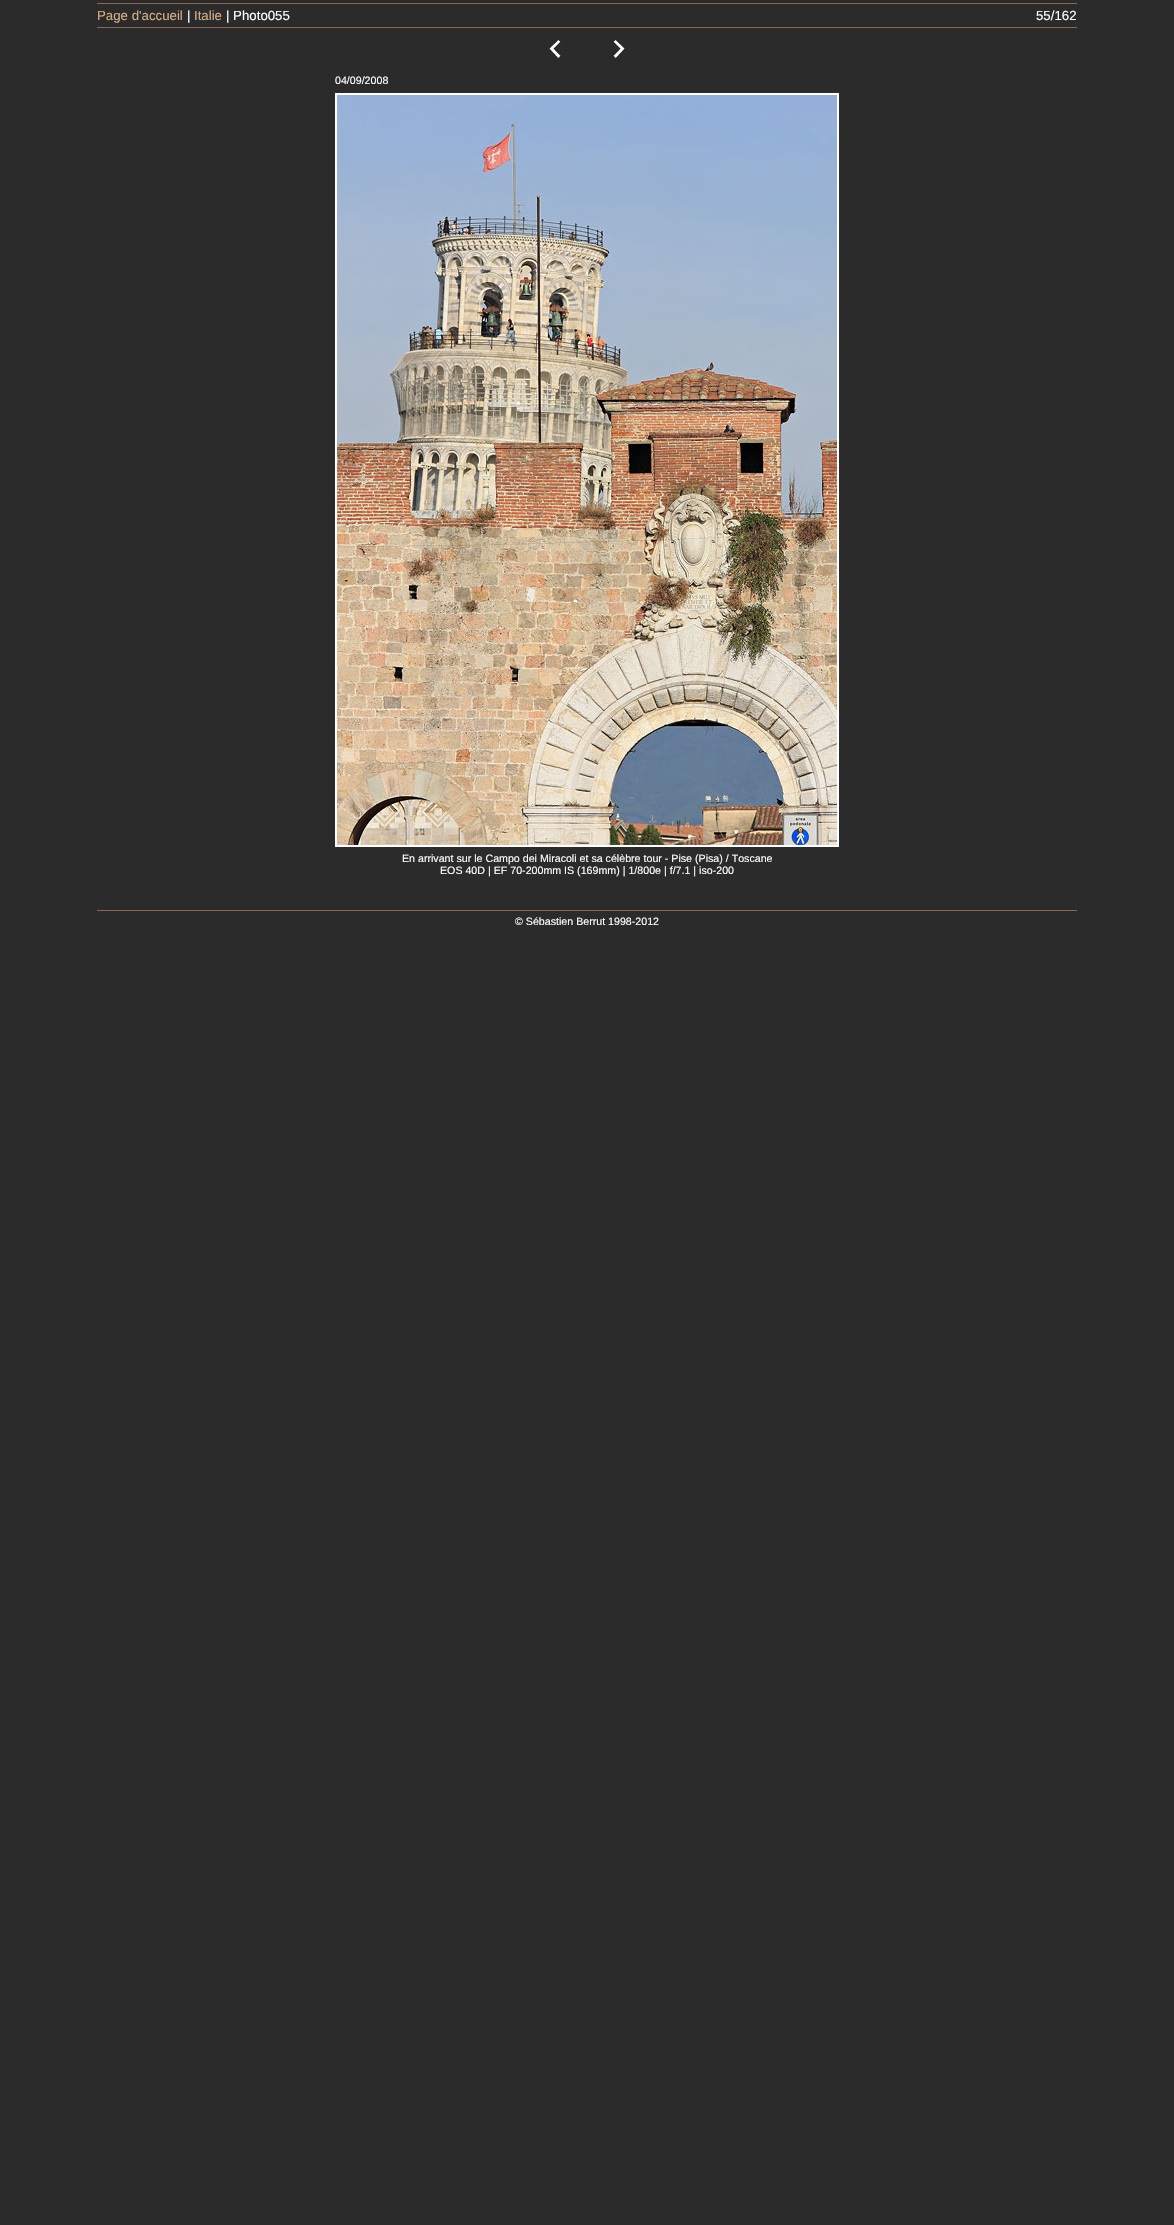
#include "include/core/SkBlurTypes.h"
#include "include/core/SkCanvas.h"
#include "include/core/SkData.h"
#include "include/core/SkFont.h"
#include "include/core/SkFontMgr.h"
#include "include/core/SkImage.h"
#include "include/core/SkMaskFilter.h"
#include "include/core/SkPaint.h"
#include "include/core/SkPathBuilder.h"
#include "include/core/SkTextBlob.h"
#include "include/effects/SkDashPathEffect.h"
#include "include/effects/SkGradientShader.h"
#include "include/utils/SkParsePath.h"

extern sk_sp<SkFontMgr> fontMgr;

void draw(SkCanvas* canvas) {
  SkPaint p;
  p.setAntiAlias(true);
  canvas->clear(SkColorSetRGB(43, 43, 43));
  p.setColor(SkColorSetRGB(141, 104, 81));
  canvas->drawRect(SkRect::MakeLTRB(97, 3, 1077, 4), p);
  canvas->drawRect(SkRect::MakeLTRB(97, 27, 1077, 28), p);
  canvas->drawImageRect(SkImages::DeferredFromEncodedData(SkData::MakeFromFileName("images/1.png")), SkRect::MakeLTRB(549, 35, 563, 58), SkSamplingOptions());
  canvas->drawImageRect(SkImages::DeferredFromEncodedData(SkData::MakeFromFileName("images/2.png")), SkRect::MakeLTRB(613, 35, 625, 58), SkSamplingOptions());
  p.setStyle(SkPaint::kStroke_Style);
  p.setStrokeWidth(2);
  p.setColor(SK_ColorWHITE);
  canvas->drawRect(SkRect::MakeLTRB(336, 94, 838, 846), p);
  canvas->drawImageRect(SkImages::DeferredFromEncodedData(SkData::MakeFromFileName("images/3.png")), SkRect::MakeLTRB(337, 95, 837, 845), SkSamplingOptions());
  p.setStyle(SkPaint::kFill_Style);
  p.setColor(SkColorSetRGB(141, 104, 81));
  canvas->drawRect(SkRect::MakeLTRB(97, 910, 1077, 911), p);
  SkFont font1(fontMgr->matchFamilyStyle("Liberation Sans", SkFontStyle::Normal()), 13.25f);
  font1.setSubpixel(true);
  p.setColor(SkColorSetRGB(213, 174, 131));
  canvas->drawString("Page d'accueil", 97, 20, font1, p);
  p.setColor(SK_ColorWHITE);
  canvas->drawString("|", 187, 20, font1, p);
  p.setColor(SkColorSetRGB(213, 174, 131));
  canvas->drawString("Italie", 194, 20, font1, p);
  p.setColor(SK_ColorWHITE);
  canvas->drawString("| Photo055", 226, 20, font1, p);
  canvas->drawString("55/162", 1036, 20, font1, p);
  SkFont font2(fontMgr->matchFamilyStyle("Liberation Sans", SkFontStyle::Normal()), 10.65f);
  font2.setSubpixel(true);
  canvas->drawString("04/09/2008", 335, 84, font2, p);
  canvas->drawString("En arrivant sur le Campo dei Miracoli et sa célèbre tour - Pise (Pisa) / Toscane", 402, 862, font2, p);
  canvas->drawString("EOS 40D | EF 70-200mm IS (169mm) | 1/800e | f/7.1 | iso-200", 440, 874, font2, p);
  canvas->drawString("© Sébastien Berrut 1998-2012", 515, 925, font2, p);
}
